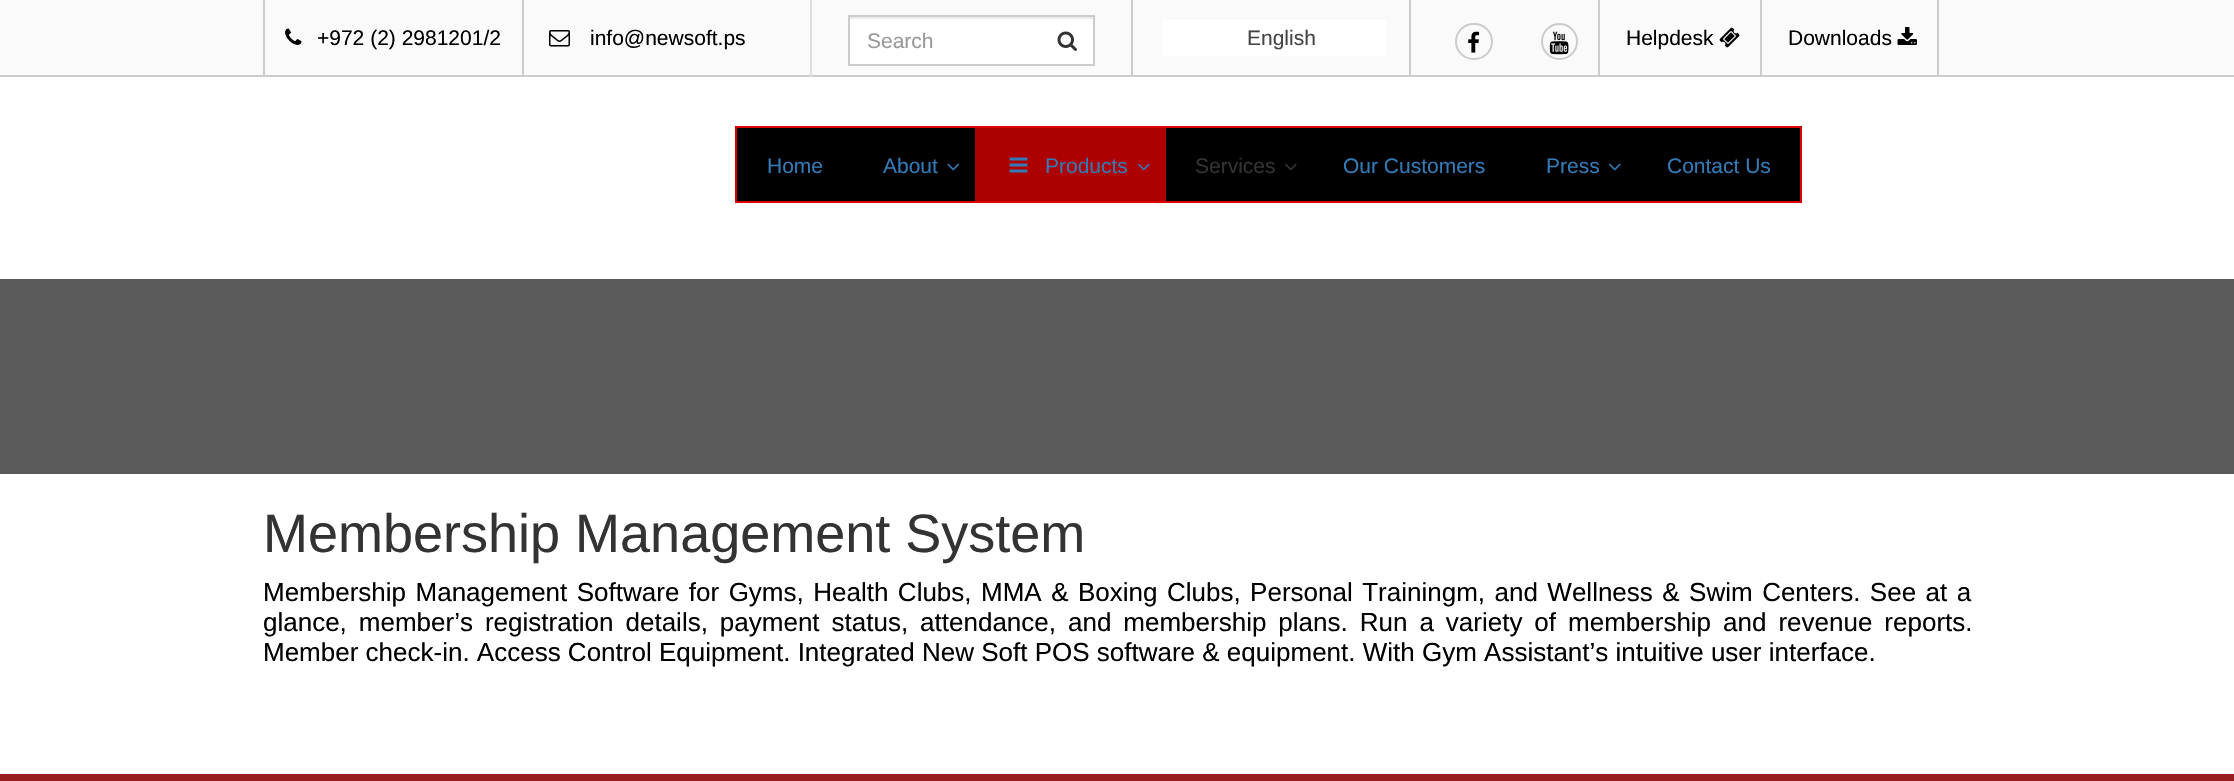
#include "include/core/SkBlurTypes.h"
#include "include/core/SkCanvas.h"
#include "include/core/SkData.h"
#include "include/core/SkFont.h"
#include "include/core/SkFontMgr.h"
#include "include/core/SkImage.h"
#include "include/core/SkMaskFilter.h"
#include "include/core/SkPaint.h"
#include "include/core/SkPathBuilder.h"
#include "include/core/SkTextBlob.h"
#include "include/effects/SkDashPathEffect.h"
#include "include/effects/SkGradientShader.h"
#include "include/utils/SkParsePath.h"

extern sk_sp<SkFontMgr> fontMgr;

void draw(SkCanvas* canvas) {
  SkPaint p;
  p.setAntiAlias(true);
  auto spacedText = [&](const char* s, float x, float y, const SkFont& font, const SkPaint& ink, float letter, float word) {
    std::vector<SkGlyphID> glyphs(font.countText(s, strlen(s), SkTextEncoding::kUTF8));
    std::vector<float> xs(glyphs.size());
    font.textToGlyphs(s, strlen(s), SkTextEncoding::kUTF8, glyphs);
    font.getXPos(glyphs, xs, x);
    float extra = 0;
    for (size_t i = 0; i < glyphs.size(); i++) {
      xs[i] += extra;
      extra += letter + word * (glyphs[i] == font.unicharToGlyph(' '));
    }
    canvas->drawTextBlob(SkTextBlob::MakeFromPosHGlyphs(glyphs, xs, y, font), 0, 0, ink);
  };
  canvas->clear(SK_ColorWHITE);
  p.setColor(SkColorSetRGB(250, 250, 250));
  canvas->drawRect(SkRect::MakeLTRB(0, 0, 2234, 75), p);
  p.setColor(SkColorSetRGB(204, 204, 204));
  canvas->drawRect(SkRect::MakeLTRB(0, 75, 2234, 77), p);
  canvas->drawRect(SkRect::MakeLTRB(263, 0, 265, 77), p);
  canvas->drawImageRect(SkImages::DeferredFromEncodedData(SkData::MakeFromFileName("images/1.png")), SkRect::MakeLTRB(285, 28, 302, 45), SkSamplingOptions());
  canvas->drawRect(SkRect::MakeLTRB(522, 0, 524, 77), p);
  canvas->drawImageRect(SkImages::DeferredFromEncodedData(SkData::MakeFromFileName("images/2.png")), SkRect::MakeLTRB(549, 30, 570, 47), SkSamplingOptions());
  p.setColor(SkColorSetRGB(221, 221, 221));
  canvas->drawRect(SkRect::MakeLTRB(810, 0, 812, 77), p);
  p.setColor(SK_ColorWHITE);
  canvas->drawRect(SkRect::MakeLTRB(850, 19, 1093, 64), p);
  p.setColor(SkColorSetRGB(236, 236, 236));
  canvas->drawRect(SkRect::MakeLTRB(849, 17, 1094, 19), p);
  p.setStyle(SkPaint::kStroke_Style);
  p.setStrokeWidth(2);
  p.setColor(SkColorSetRGB(204, 204, 204));
  canvas->drawRect(SkRect::MakeLTRB(849, 16, 1094, 65), p);
  canvas->drawImageRect(SkImages::DeferredFromEncodedData(SkData::MakeFromFileName("images/3.png")), SkRect::MakeLTRB(1057, 31, 1077, 51), SkSamplingOptions());
  p.setStyle(SkPaint::kFill_Style);
  canvas->drawRect(SkRect::MakeLTRB(1131, 0, 1133, 77), p);
  p.setColor(SK_ColorWHITE);
  canvas->drawRect(SkRect::MakeLTRB(1163, 20, 1386, 56), p);
  p.setColor(SkColorSetRGB(204, 204, 204));
  canvas->drawRect(SkRect::MakeLTRB(1409, 0, 1411, 77), p);
  p.setStyle(SkPaint::kStroke_Style);
  canvas->drawRoundRect(SkRect::MakeLTRB(1456, 24, 1492, 59), 17.5f, 17.5f, p);
  canvas->drawImageRect(SkImages::DeferredFromEncodedData(SkData::MakeFromFileName("images/4.png")), SkRect::MakeLTRB(1468, 31, 1480, 53), SkSamplingOptions());
  canvas->drawCircle(1559.5f, 41.5f, 17.5f, p);
  canvas->drawImageRect(SkImages::DeferredFromEncodedData(SkData::MakeFromFileName("images/5.png")), SkRect::MakeLTRB(1549, 31, 1569, 55), SkSamplingOptions());
  p.setStyle(SkPaint::kFill_Style);
  canvas->drawRect(SkRect::MakeLTRB(1598, 0, 1600, 77), p);
  canvas->drawImageRect(SkImages::DeferredFromEncodedData(SkData::MakeFromFileName("images/6.png")), SkRect::MakeLTRB(1719, 27, 1740, 48), SkSamplingOptions());
  canvas->drawRect(SkRect::MakeLTRB(1760, 0, 1762, 77), p);
  canvas->drawImageRect(SkImages::DeferredFromEncodedData(SkData::MakeFromFileName("images/7.png")), SkRect::MakeLTRB(1897, 27, 1917, 45), SkSamplingOptions());
  canvas->drawRect(SkRect::MakeLTRB(1937, 0, 1939, 77), p);
  p.setStyle(SkPaint::kStroke_Style);
  p.setColor(SkColorSetRGB(221, 0, 0));
  canvas->drawRect(SkRect::MakeLTRB(736, 127, 1801, 202), p);
  p.setStyle(SkPaint::kFill_Style);
  p.setColor(SK_ColorBLACK);
  canvas->drawRect(SkRect::MakeLTRB(737, 128, 975, 201), p);
  canvas->drawImageRect(SkImages::DeferredFromEncodedData(SkData::MakeFromFileName("images/8.png")), SkRect::MakeLTRB(947, 163, 960, 171), SkSamplingOptions());
  p.setColor(SkColorSetRGB(173, 0, 0));
  canvas->drawRect(SkRect::MakeLTRB(975, 128, 1166, 201), p);
  canvas->drawImageRect(SkImages::DeferredFromEncodedData(SkData::MakeFromFileName("images/9.png")), SkRect::MakeLTRB(1009, 157, 1028, 173), SkSamplingOptions());
  canvas->drawImageRect(SkImages::DeferredFromEncodedData(SkData::MakeFromFileName("images/10.png")), SkRect::MakeLTRB(1137, 163, 1150, 171), SkSamplingOptions());
  p.setColor(SK_ColorBLACK);
  canvas->drawRect(SkRect::MakeLTRB(1166, 128, 1800, 201), p);
  canvas->drawImageRect(SkImages::DeferredFromEncodedData(SkData::MakeFromFileName("images/11.png")), SkRect::MakeLTRB(1285, 163, 1297, 171), SkSamplingOptions());
  canvas->drawImageRect(SkImages::DeferredFromEncodedData(SkData::MakeFromFileName("images/12.png")), SkRect::MakeLTRB(1608, 163, 1621, 171), SkSamplingOptions());
  p.setColor(SkColorSetRGB(90, 90, 90));
  canvas->drawRect(SkRect::MakeLTRB(0, 279, 2234, 474), p);
  p.setColor(SkColorSetRGB(152, 29, 32));
  canvas->drawRect(SkRect::MakeLTRB(0, 774, 2234, 781), p);
  SkFont font1(fontMgr->matchFamilyStyle("Liberation Sans", SkFontStyle::Normal()), 21);
  font1.setSubpixel(true);
  p.setColor(SK_ColorBLACK);
  canvas->drawString("+972 (2) 2981201/2", 317, 45, font1, p);
  canvas->drawString("info@newsoft.ps", 590, 45, font1, p);
  p.setColor(SkColorSetRGB(153, 153, 153));
  canvas->drawString("Search", 867, 48, font1, p);
  p.setColor(SkColorSetRGB(68, 68, 68));
  canvas->drawString("English", 1247, 45, font1, p);
  p.setColor(SK_ColorBLACK);
  canvas->drawString("Helpdesk", 1626, 45, font1, p);
  canvas->drawString("Downloads", 1788, 45, font1, p);
  p.setColor(SkColorSetRGB(51, 122, 183));
  canvas->drawString("Home", 767, 173, font1, p);
  canvas->drawString("About", 883, 173, font1, p);
  canvas->drawString("Products", 1045, 173, font1, p);
  p.setColor(SkColorSetRGB(51, 51, 51));
  canvas->drawString("Services", 1195, 173, font1, p);
  p.setColor(SkColorSetRGB(51, 122, 183));
  canvas->drawString("Our Customers", 1343, 173, font1, p);
  canvas->drawString("Press", 1546, 173, font1, p);
  canvas->drawString("Contact Us", 1667, 173, font1, p);
  SkFont font2(fontMgr->matchFamilyStyle("Liberation Sans", SkFontStyle::Normal()), 54);
  font2.setSubpixel(true);
  p.setColor(SkColorSetRGB(51, 51, 51));
  canvas->drawString("Membership Management System", 263, 552, font2, p);
  SkFont font3(fontMgr->matchFamilyStyle("Liberation Sans", SkFontStyle::Normal()), 26);
  font3.setSubpixel(true);
  p.setColor(SK_ColorBLACK);
  spacedText("Membership Management Software for Gyms, Health Clubs, MMA & Boxing Clubs, Personal Trainingm, and Wellness & Swim Centers. See at a", 263, 601, font3, p, 0, 2.25f);
  spacedText("glance, member’s registration details, payment status, attendance, and membership plans. Run a variety of membership and revenue reports.", 263, 631, font3, p, 0, 4.75f);
  canvas->drawString("Member check-in. Access Control Equipment. Integrated New Soft POS software & equipment. With Gym Assistant’s intuitive user interface.", 263, 661, font3, p);
}
